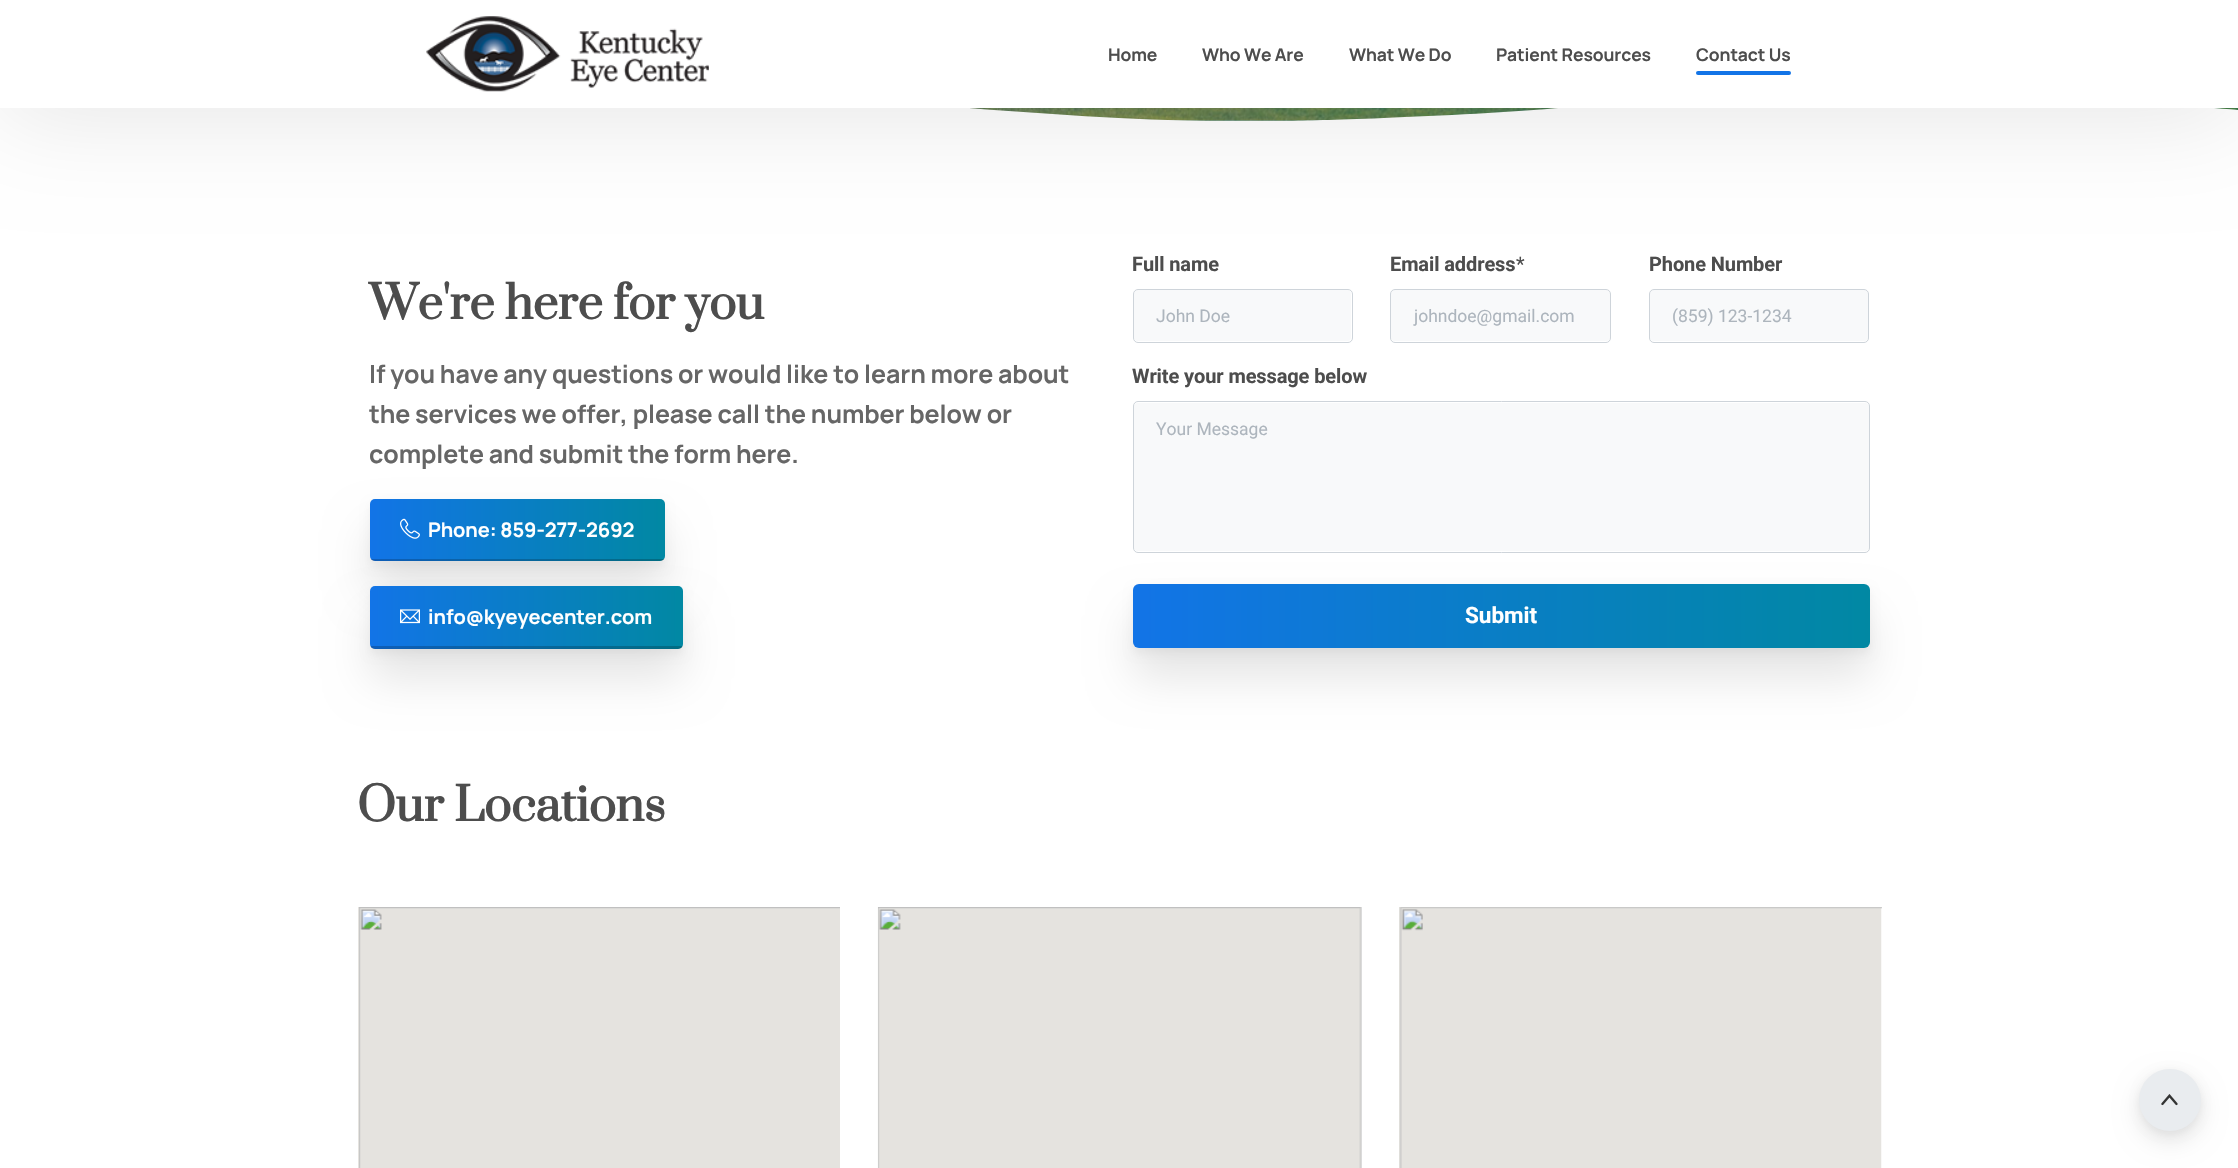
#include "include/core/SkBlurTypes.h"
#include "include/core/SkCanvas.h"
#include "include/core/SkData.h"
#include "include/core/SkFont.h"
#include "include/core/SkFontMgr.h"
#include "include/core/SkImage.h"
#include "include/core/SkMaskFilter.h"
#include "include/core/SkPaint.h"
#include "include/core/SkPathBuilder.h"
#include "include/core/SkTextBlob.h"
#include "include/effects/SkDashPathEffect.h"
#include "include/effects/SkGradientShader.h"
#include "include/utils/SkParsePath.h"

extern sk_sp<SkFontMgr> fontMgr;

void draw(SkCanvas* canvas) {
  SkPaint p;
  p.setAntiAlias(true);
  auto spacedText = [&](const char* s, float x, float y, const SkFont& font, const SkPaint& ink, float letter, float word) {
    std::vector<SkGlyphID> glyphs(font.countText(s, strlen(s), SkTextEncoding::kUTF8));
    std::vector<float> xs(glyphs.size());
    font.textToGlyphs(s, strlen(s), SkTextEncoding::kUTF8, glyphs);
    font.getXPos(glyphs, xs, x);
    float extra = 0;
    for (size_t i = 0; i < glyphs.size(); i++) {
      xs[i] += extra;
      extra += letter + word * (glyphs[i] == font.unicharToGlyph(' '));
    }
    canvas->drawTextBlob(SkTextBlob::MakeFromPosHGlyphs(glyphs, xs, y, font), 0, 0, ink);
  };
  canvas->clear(SK_ColorWHITE);
  canvas->drawImageRect(SkImages::DeferredFromEncodedData(SkData::MakeFromFileName("images/2.png")), SkRect::MakeLTRB(970, 108, 2238, 121), SkSamplingOptions());
  {
    const SkColor colors[] = {SkColorSetARGB(102, 43, 104, 228), SkColorSetARGB(102, 1, 136, 163)};
    const float stops[] = {0, 1};
    const SkPoint ends[] = {{1046, -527}, {1193, 306}};
    p.setShader(SkGradientShader::MakeLinear(ends, colors, stops, 2, SkTileMode::kClamp));
    p.setAlpha(255);
  }
  canvas->drawRect(SkRect::MakeLTRB(970, 108, 2238, 121), p);
  canvas->save();
  canvas->clipRect(SkRect::MakeLTRB(0, 78, 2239, 123));
  p.setShader(nullptr);
  p.setColor(SK_ColorWHITE);
  canvas->drawPath(SkPathBuilder().moveTo(1294, 121).cubicTo(1103, 125, 913, 101, 723, 89).cubicTo(575, 81, 427, 77, 279, 80).cubicTo(186, 82, 92, 85, -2, 92).lineTo(-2, 124).lineTo(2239, 124).lineTo(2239, 110).cubicTo(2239, 110, 2078, 95, 1884, 96).cubicTo(1796, 97, 1676, 99, 1584, 106).cubicTo(1536, 110, 1467, 115, 1405, 117).cubicTo(1344, 120, 1317, 120, 1294, 121).close().detach(), p);
  canvas->restore();
  p.setColor(SkColorSetARGB(26, 0, 0, 0));
  p.setMaskFilter(SkMaskFilter::MakeBlur(kNormal_SkBlurStyle, 50));
  canvas->drawRect(SkRect::MakeLTRB(0, 6, 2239, 114), p);
  p.setMaskFilter(nullptr);
  p.setColor(SK_ColorWHITE);
  canvas->drawRect(SkRect::MakeLTRB(0, 0, 2238, 108), p);
  canvas->drawImageRect(SkImages::DeferredFromEncodedData(SkData::MakeFromFileName("images/1.png")), SkRect::MakeLTRB(426, 16, 709, 92), SkSamplingOptions());
  p.setColor(SkColorSetRGB(18, 116, 231));
  canvas->drawRoundRect(SkRect::MakeLTRB(1696, 71, 1791, 75), 2, 2, p);
  p.setColor(SkColorSetARGB(26, 0, 0, 0));
  p.setMaskFilter(SkMaskFilter::MakeBlur(kNormal_SkBlurStyle, 22));
  canvas->drawRoundRect(SkRect::MakeLTRB(370, 529, 665, 591), 5, 5, p);
  p.setMaskFilter(nullptr);
  p.setColor(SkColorSetARGB(13, 0, 0, 0));
  p.setMaskFilter(SkMaskFilter::MakeBlur(kNormal_SkBlurStyle, 5));
  canvas->drawRoundRect(SkRect::MakeLTRB(370, 504, 665, 566), 5, 5, p);
  p.setMaskFilter(nullptr);
  {
    const SkColor colors[] = {SkColorSetRGB(18, 116, 231), SkColorSetRGB(1, 136, 163)};
    const float stops[] = {0, 1};
    const SkPoint ends[] = {{370, 530}, {665, 530}};
    p.setShader(SkGradientShader::MakeLinear(ends, colors, stops, 2, SkTileMode::kClamp));
    p.setAlpha(255);
  }
  canvas->drawRoundRect(SkRect::MakeLTRB(370, 499, 665, 561), 5, 5, p);
  canvas->drawImageRect(SkImages::DeferredFromEncodedData(SkData::MakeFromFileName("images/3.png")), SkRect::MakeLTRB(400, 518, 420, 539), SkSamplingOptions());
  canvas->save();
  canvas->clipPath(SkPathBuilder().moveTo(375, 499).lineTo(660, 499).cubicTo(663, 499, 665, 501, 665, 504).lineTo(665, 556).cubicTo(665, 559, 663, 561, 660, 561).lineTo(375, 561).cubicTo(372, 561, 370, 559, 370, 556).lineTo(370, 504).cubicTo(370, 501, 372, 499, 375, 499).close().detach(), true);
  p.setShader(nullptr);
  p.setColor(SkColorSetARGB(51, 0, 0, 0));
  canvas->drawRoundRect(SkRect::MakeLTRB(370, 559, 665, 562), 1.5f, 1.5f, p);
  canvas->restore();
  p.setColor(SkColorSetARGB(26, 0, 0, 0));
  p.setMaskFilter(SkMaskFilter::MakeBlur(kNormal_SkBlurStyle, 22));
  canvas->drawRoundRect(SkRect::MakeLTRB(370, 616, 683, 679), 5, 5, p);
  p.setMaskFilter(nullptr);
  p.setColor(SkColorSetARGB(13, 0, 0, 0));
  p.setMaskFilter(SkMaskFilter::MakeBlur(kNormal_SkBlurStyle, 5));
  canvas->drawRoundRect(SkRect::MakeLTRB(370, 591, 683, 654), 5, 5, p);
  p.setMaskFilter(nullptr);
  {
    const SkColor colors[] = {SkColorSetRGB(18, 116, 231), SkColorSetRGB(1, 136, 163)};
    const float stops[] = {0, 1};
    const SkPoint ends[] = {{370, 618}, {683, 618}};
    p.setShader(SkGradientShader::MakeLinear(ends, colors, stops, 2, SkTileMode::kClamp));
    p.setAlpha(255);
  }
  canvas->drawRoundRect(SkRect::MakeLTRB(370, 586, 683, 649), 5, 5, p);
  canvas->drawImageRect(SkImages::DeferredFromEncodedData(SkData::MakeFromFileName("images/4.png")), SkRect::MakeLTRB(400, 609, 420, 624), SkSamplingOptions());
  canvas->save();
  canvas->clipPath(SkPathBuilder().moveTo(375, 586).lineTo(678, 586).cubicTo(681, 586, 683, 588, 683, 591).lineTo(683, 644).cubicTo(683, 647, 681, 649, 678, 649).lineTo(375, 649).cubicTo(372, 649, 370, 647, 370, 644).lineTo(370, 591).cubicTo(370, 588, 372, 586, 375, 586).close().detach(), true);
  p.setShader(nullptr);
  p.setColor(SkColorSetARGB(51, 0, 0, 0));
  canvas->drawRoundRect(SkRect::MakeLTRB(370, 646, 683, 649), 1.5f, 1.5f, p);
  canvas->restore();
  p.setColor(SkColorSetRGB(248, 249, 250));
  canvas->drawRoundRect(SkRect::MakeLTRB(1134, 290, 1351, 341), 4, 4, p);
  p.setStyle(SkPaint::kStroke_Style);
  p.setStrokeWidth(1);
  p.setColor(SkColorSetRGB(206, 212, 218));
  canvas->drawRoundRect(SkRect::MakeLTRB(1133.5f, 289.5f, 1352.5f, 342.5f), 4.5f, 4.5f, p);
  p.setStyle(SkPaint::kFill_Style);
  p.setColor(SkColorSetRGB(248, 249, 250));
  canvas->drawRoundRect(SkRect::MakeLTRB(1391, 290, 1610, 341), 4, 4, p);
  p.setStyle(SkPaint::kStroke_Style);
  p.setColor(SkColorSetRGB(206, 212, 218));
  canvas->drawRoundRect(SkRect::MakeLTRB(1390.5f, 289.5f, 1610.5f, 342.5f), 4.5f, 4.5f, p);
  p.setStyle(SkPaint::kFill_Style);
  p.setColor(SkColorSetRGB(248, 249, 250));
  canvas->drawRoundRect(SkRect::MakeLTRB(1650, 290, 1868, 341), 4, 4, p);
  p.setStyle(SkPaint::kStroke_Style);
  p.setColor(SkColorSetRGB(206, 212, 218));
  canvas->drawRoundRect(SkRect::MakeLTRB(1649.5f, 289.5f, 1868.5f, 342.5f), 4.5f, 4.5f, p);
  p.setStyle(SkPaint::kFill_Style);
  p.setColor(SkColorSetARGB(26, 0, 0, 0));
  p.setMaskFilter(SkMaskFilter::MakeBlur(kNormal_SkBlurStyle, 22));
  canvas->drawRoundRect(SkRect::MakeLTRB(1133, 614, 1870, 678), 6, 6, p);
  p.setMaskFilter(nullptr);
  p.setColor(SkColorSetRGB(248, 249, 250));
  canvas->drawRoundRect(SkRect::MakeLTRB(1134, 403, 1869, 551), 4, 4, p);
  p.setStyle(SkPaint::kStroke_Style);
  p.setColor(SkColorSetRGB(206, 212, 218));
  canvas->drawRoundRect(SkRect::MakeLTRB(1133.5f, 401.5f, 1869.5f, 552.5f), 4.5f, 4.5f, p);
  p.setStyle(SkPaint::kFill_Style);
  p.setColor(SkColorSetARGB(13, 0, 0, 0));
  p.setMaskFilter(SkMaskFilter::MakeBlur(kNormal_SkBlurStyle, 5));
  canvas->drawRoundRect(SkRect::MakeLTRB(1133, 589, 1870, 653), 6, 6, p);
  p.setMaskFilter(nullptr);
  {
    const SkColor colors[] = {SkColorSetRGB(18, 116, 231), SkColorSetRGB(1, 136, 163)};
    const float stops[] = {0, 1};
    const SkPoint ends[] = {{1133, 616}, {1870, 616}};
    p.setShader(SkGradientShader::MakeLinear(ends, colors, stops, 2, SkTileMode::kClamp));
    p.setAlpha(255);
  }
  canvas->drawRoundRect(SkRect::MakeLTRB(1133, 584, 1870, 648), 6, 6, p);
  canvas->drawImageRect(SkImages::DeferredFromEncodedData(SkData::MakeFromFileName("images/5.png")), SkRect::MakeLTRB(358, 907, 840, 1168), SkSamplingOptions());
  canvas->drawImageRect(SkImages::DeferredFromEncodedData(SkData::MakeFromFileName("images/6.png")), SkRect::MakeLTRB(877, 907, 1362, 1168), SkSamplingOptions());
  canvas->drawImageRect(SkImages::DeferredFromEncodedData(SkData::MakeFromFileName("images/7.png")), SkRect::MakeLTRB(1399, 907, 1882, 1168), SkSamplingOptions());
  p.setShader(nullptr);
  p.setColor(SkColorSetARGB(26, 0, 0, 0));
  p.setMaskFilter(SkMaskFilter::MakeBlur(kNormal_SkBlurStyle, 12));
  canvas->drawRoundRect(SkRect::MakeLTRB(2139, 1079, 2201, 1141), 31, 31, p);
  p.setMaskFilter(nullptr);
  p.setColor(SkColorSetARGB(13, 0, 0, 0));
  p.setMaskFilter(SkMaskFilter::MakeBlur(kNormal_SkBlurStyle, 4));
  canvas->drawRoundRect(SkRect::MakeLTRB(2139, 1071, 2201, 1134), 31, 31, p);
  p.setMaskFilter(nullptr);
  p.setColor(SkColorSetRGB(233, 236, 239));
  canvas->drawCircle(2170, 1100, 31, p);
  canvas->drawImageRect(SkImages::DeferredFromEncodedData(SkData::MakeFromFileName("images/8.png")), SkRect::MakeLTRB(2161, 1094, 2178, 1106), SkSamplingOptions());
  SkFont font1(fontMgr->matchFamilyStyle("Manrope", SkFontStyle::Bold()), 17.5f);
  font1.setSubpixel(true);
  p.setColor(SkColorSetRGB(77, 77, 77));
  spacedText("Home", 1108, 61, font1, p, -0.1f, 0);
  spacedText("Who We Are", 1202, 61, font1, p, -0.1f, 0);
  spacedText("What We Do", 1349, 61, font1, p, -0.1f, 0);
  spacedText("Patient Resources", 1496, 61, font1, p, -0.1f, 0);
  spacedText("Contact Us", 1696, 61, font1, p, -0.1f, 0);
  SkFont font2(fontMgr->matchFamilyStyle("Prata", SkFontStyle::Bold()), 45);
  font2.setSubpixel(true);
  spacedText("We're here for you", 369, 319, font2, p, -0.25f, 0);
  SkFont font3(fontMgr->matchFamilyStyle("Manrope", SkFontStyle::Bold()), 25);
  font3.setSubpixel(true);
  p.setColor(SkColorSetRGB(102, 102, 102));
  spacedText("If you have any questions or would like to learn more about", 369, 383, font3, p, -0.1f, 0);
  spacedText("the services we offer, please call the number below or", 369, 423, font3, p, -0.1f, 0);
  spacedText("complete and submit the form here.", 369, 463, font3, p, -0.1f, 0);
  SkFont font4(fontMgr->matchFamilyStyle("Manrope", SkFontStyle::Bold()), 20);
  font4.setSubpixel(true);
  p.setColor(SK_ColorWHITE);
  spacedText("Phone: 859-277-2692", 428, 537, font4, p, -0.1f, 0);
  spacedText("info@kyeyecenter.com", 428, 624, font4, p, -0.1f, 0);
  SkFont font5(fontMgr->matchFamilyStyle("Roboto", SkFontStyle::Bold()), 20);
  font5.setSubpixel(true);
  p.setColor(SkColorSetRGB(77, 77, 77));
  spacedText("Full name", 1132, 271, font5, p, -0.1f, 0);
  SkFont font6(fontMgr->matchFamilyStyle("Roboto", SkFontStyle::Normal()), 17.5f);
  font6.setSubpixel(true);
  p.setColor(SkColorSetRGB(173, 181, 189));
  canvas->drawString("John Doe", 1156, 322, font6, p);
  p.setColor(SkColorSetRGB(77, 77, 77));
  spacedText("Email address", 1390, 271, font5, p, -0.1f, 0);
  SkFont font7(fontMgr->matchFamilyStyle("Roboto", SkFontStyle::Normal()), 20);
  font7.setSubpixel(true);
  spacedText("*", 1516, 271, font7, p, -0.1f, 0);
  p.setColor(SkColorSetRGB(173, 181, 189));
  canvas->drawString("johndoe@gmail.com", 1414, 322, font6, p);
  p.setColor(SkColorSetRGB(77, 77, 77));
  spacedText("Phone Number", 1649, 271, font5, p, -0.1f, 0);
  p.setColor(SkColorSetRGB(173, 181, 189));
  canvas->drawString("(859) 123-1234", 1672, 322, font6, p);
  p.setColor(SkColorSetRGB(77, 77, 77));
  spacedText("Write your message below", 1132, 383, font5, p, -0.1f, 0);
  p.setColor(SkColorSetRGB(173, 181, 189));
  canvas->drawString("Your Message", 1156, 435, font6, p);
  SkFont font8(fontMgr->matchFamilyStyle("Roboto", SkFontStyle::Bold()), 22.5f);
  font8.setSubpixel(true);
  p.setColor(SK_ColorWHITE);
  canvas->drawString("Submit", 1465, 623, font8, p);
  p.setColor(SkColorSetRGB(77, 77, 77));
  spacedText("Our Locations", 357, 821, font2, p, -0.25f, 0);
}
